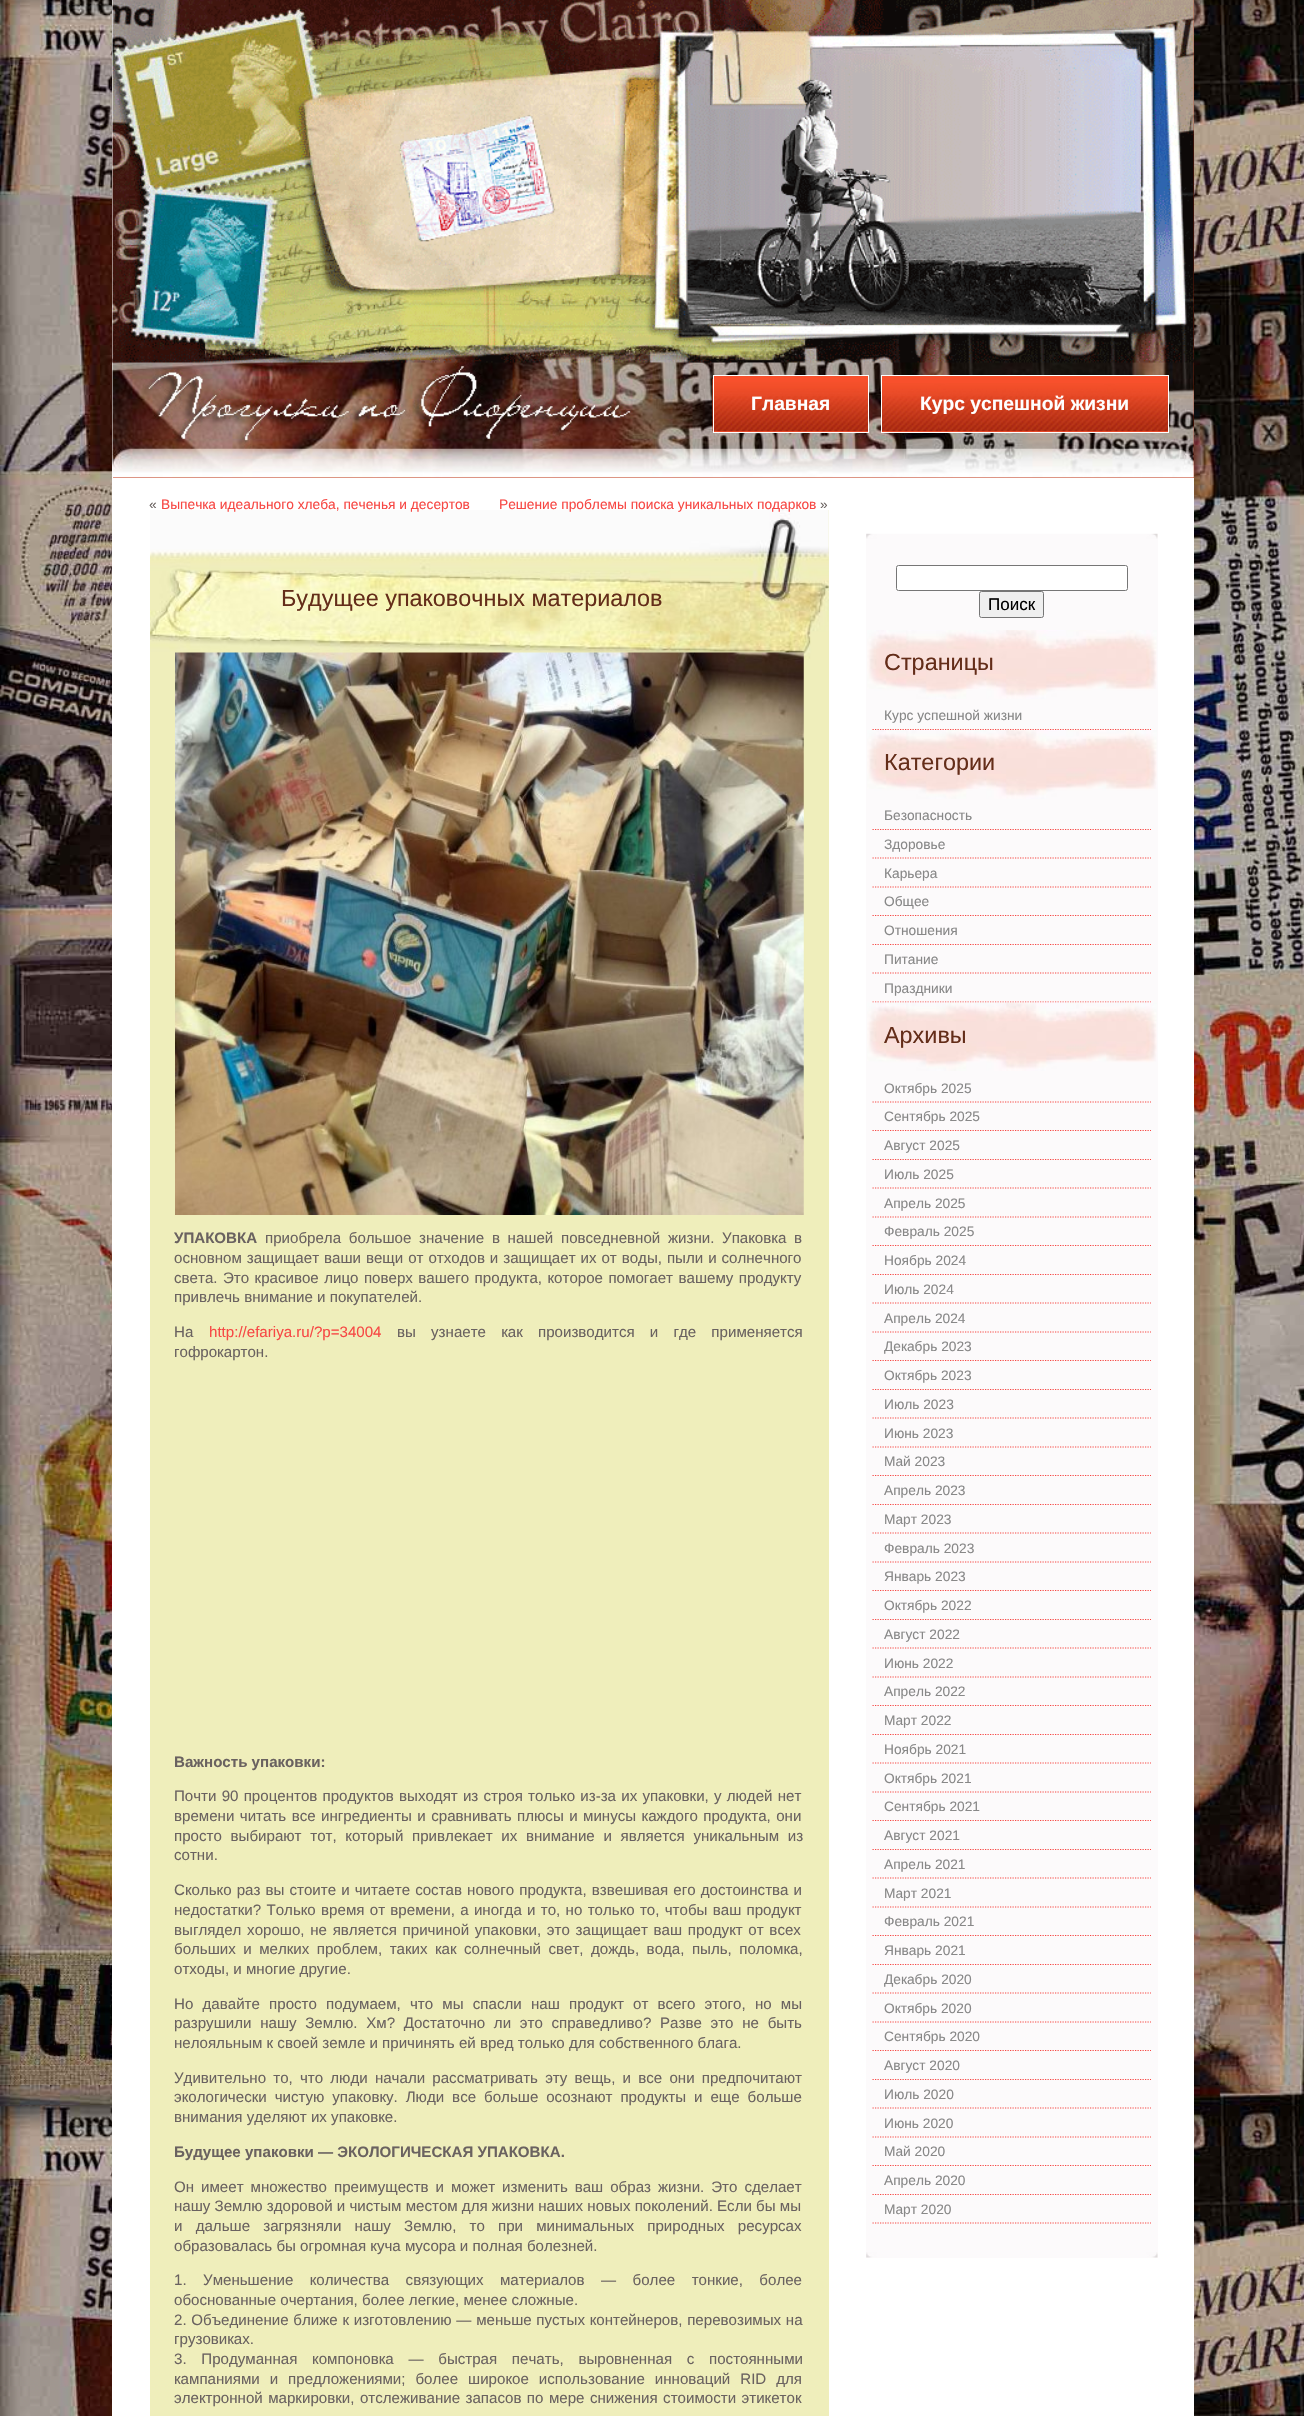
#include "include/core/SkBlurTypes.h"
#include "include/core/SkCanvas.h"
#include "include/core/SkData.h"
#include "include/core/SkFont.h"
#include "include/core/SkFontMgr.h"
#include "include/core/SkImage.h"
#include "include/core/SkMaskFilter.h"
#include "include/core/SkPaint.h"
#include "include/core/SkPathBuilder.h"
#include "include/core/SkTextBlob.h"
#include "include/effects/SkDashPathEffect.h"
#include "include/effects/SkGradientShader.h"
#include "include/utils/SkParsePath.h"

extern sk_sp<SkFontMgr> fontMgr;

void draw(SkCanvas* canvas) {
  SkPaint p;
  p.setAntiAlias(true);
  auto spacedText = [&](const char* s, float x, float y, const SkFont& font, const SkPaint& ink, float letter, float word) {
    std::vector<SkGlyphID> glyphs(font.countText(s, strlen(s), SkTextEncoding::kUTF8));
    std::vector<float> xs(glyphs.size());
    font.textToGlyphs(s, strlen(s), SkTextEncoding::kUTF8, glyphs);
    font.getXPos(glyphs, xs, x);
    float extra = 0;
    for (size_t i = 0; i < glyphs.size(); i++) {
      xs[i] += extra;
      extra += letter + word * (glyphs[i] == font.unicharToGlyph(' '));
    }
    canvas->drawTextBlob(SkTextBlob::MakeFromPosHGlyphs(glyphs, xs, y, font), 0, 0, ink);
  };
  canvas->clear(SK_ColorWHITE);
  canvas->drawImageRect(SkImages::DeferredFromEncodedData(SkData::MakeFromFileName("images/1.png")), SkRect::MakeLTRB(0, 0, 1304, 2416), SkSamplingOptions());
  p.setColor(SK_ColorWHITE);
  canvas->drawRect(SkRect::MakeLTRB(112, 0, 1194, 2416), p);
  p.setColor(SkColorSetRGB(187, 43, 11));
  canvas->drawRect(SkRect::MakeLTRB(113, 0, 1194, 478), p);
  canvas->drawImageRect(SkImages::DeferredFromEncodedData(SkData::MakeFromFileName("images/2.png")), SkRect::MakeLTRB(112, 358, 1194, 478), SkSamplingOptions());
  canvas->drawImageRect(SkImages::DeferredFromEncodedData(SkData::MakeFromFileName("images/3.png")), SkRect::MakeLTRB(112, 0, 1194, 363), SkSamplingOptions());
  p.setColor(SkColorSetRGB(248, 80, 44));
  canvas->drawRect(SkRect::MakeLTRB(714, 376, 868, 432), p);
  canvas->drawImageRect(SkImages::DeferredFromEncodedData(SkData::MakeFromFileName("images/4.png")), SkRect::MakeLTRB(712, 378, 868, 432), SkSamplingOptions());
  p.setStyle(SkPaint::kStroke_Style);
  p.setStrokeWidth(1);
  p.setColor(SK_ColorWHITE);
  canvas->drawRect(SkRect::MakeLTRB(713.5f, 375.5f, 868.5f, 432.5f), p);
  p.setStyle(SkPaint::kFill_Style);
  p.setColor(SkColorSetRGB(248, 80, 44));
  canvas->drawRect(SkRect::MakeLTRB(882, 376, 1168, 432), p);
  canvas->drawImageRect(SkImages::DeferredFromEncodedData(SkData::MakeFromFileName("images/5.png")), SkRect::MakeLTRB(882, 383, 1168, 432), SkSamplingOptions());
  p.setStyle(SkPaint::kStroke_Style);
  p.setColor(SK_ColorWHITE);
  canvas->drawRect(SkRect::MakeLTRB(881.5f, 375.5f, 1168.5f, 432.5f), p);
  p.setStyle(SkPaint::kFill_Style);
  p.setColor(SkColorSetRGB(239, 238, 187));
  canvas->drawRect(SkRect::MakeLTRB(150, 510, 829, 2416), p);
  canvas->drawImageRect(SkImages::DeferredFromEncodedData(SkData::MakeFromFileName("images/6.png")), SkRect::MakeLTRB(150, 510, 829, 660), SkSamplingOptions());
  canvas->drawImageRect(SkImages::DeferredFromEncodedData(SkData::MakeFromFileName("images/7.png")), SkRect::MakeLTRB(175, 652, 804, 1215), SkSamplingOptions());
  p.setColor(SkColorSetRGB(252, 250, 251));
  canvas->drawRect(SkRect::MakeLTRB(866, 534, 1158, 2258), p);
  canvas->drawImageRect(SkImages::DeferredFromEncodedData(SkData::MakeFromFileName("images/8.png")), SkRect::MakeLTRB(866, 2252, 1158, 2258), SkSamplingOptions());
  canvas->drawImageRect(SkImages::DeferredFromEncodedData(SkData::MakeFromFileName("images/9.png")), SkRect::MakeLTRB(866, 533, 1158, 539), SkSamplingOptions());
  p.setColor(SK_ColorWHITE);
  canvas->drawRoundRect(SkRect::MakeLTRB(896.5f, 565.5f, 1127.5f, 590.5f), 2, 2, p);
  p.setStyle(SkPaint::kStroke_Style);
  p.setColor(SkColorSetRGB(118, 118, 118));
  canvas->drawRoundRect(SkRect::MakeLTRB(896.5f, 565.5f, 1127.5f, 590.5f), 2, 2, p);
  p.setStyle(SkPaint::kFill_Style);
  p.setColor(SkColorSetRGB(239, 239, 239));
  canvas->drawRoundRect(SkRect::MakeLTRB(979.5f, 591.5f, 1043.5f, 617.5f), 2, 2, p);
  p.setStyle(SkPaint::kStroke_Style);
  p.setColor(SkColorSetRGB(118, 118, 118));
  canvas->drawRoundRect(SkRect::MakeLTRB(979.5f, 591.5f, 1043.5f, 617.5f), 2, 2, p);
  canvas->drawImageRect(SkImages::DeferredFromEncodedData(SkData::MakeFromFileName("images/10.png")), SkRect::MakeLTRB(867, 630, 1157, 699), SkSamplingOptions());
  p.setStrokeWidth(1.2f);
  p.setColor(SkColorSetRGB(247, 72, 68));
  p.setPathEffect(SkDashPathEffect::Make({{1.25f, 1.25f}}, 0));
  canvas->drawPath(SkPathBuilder().moveTo(872.5f, 729.5f).lineTo(1151, 729.5f).detach(), p);
  p.setPathEffect(nullptr);
  canvas->drawImageRect(SkImages::DeferredFromEncodedData(SkData::MakeFromFileName("images/10.png")), SkRect::MakeLTRB(867, 730, 1157, 799), SkSamplingOptions());
  p.setPathEffect(SkDashPathEffect::Make({{1.25f, 1.25f}}, 0));
  canvas->drawPath(SkPathBuilder().moveTo(872.5f, 829.5f).lineTo(1151, 829.5f).detach(), p);
  p.setPathEffect(nullptr);
  p.setPathEffect(SkDashPathEffect::Make({{1.25f, 1.25f}}, 0));
  canvas->drawPath(SkPathBuilder().moveTo(872.5f, 858).lineTo(1151, 858).detach(), p);
  p.setPathEffect(nullptr);
  p.setPathEffect(SkDashPathEffect::Make({{1.25f, 1.25f}}, 0));
  canvas->drawPath(SkPathBuilder().moveTo(872.5f, 887).lineTo(1151, 887).detach(), p);
  p.setPathEffect(nullptr);
  p.setPathEffect(SkDashPathEffect::Make({{1.25f, 1.25f}}, 0));
  canvas->drawPath(SkPathBuilder().moveTo(872.5f, 915.5f).lineTo(1151, 915.5f).detach(), p);
  p.setPathEffect(nullptr);
  p.setPathEffect(SkDashPathEffect::Make({{1.25f, 1.25f}}, 0));
  canvas->drawPath(SkPathBuilder().moveTo(872.5f, 944.5f).lineTo(1151, 944.5f).detach(), p);
  p.setPathEffect(nullptr);
  p.setPathEffect(SkDashPathEffect::Make({{1.25f, 1.25f}}, 0));
  canvas->drawPath(SkPathBuilder().moveTo(872.5f, 973).lineTo(1151, 973).detach(), p);
  p.setPathEffect(nullptr);
  p.setPathEffect(SkDashPathEffect::Make({{1.25f, 1.25f}}, 0));
  canvas->drawPath(SkPathBuilder().moveTo(872.5f, 1002).lineTo(1151, 1002).detach(), p);
  p.setPathEffect(nullptr);
  canvas->drawImageRect(SkImages::DeferredFromEncodedData(SkData::MakeFromFileName("images/11.png")), SkRect::MakeLTRB(867, 1002, 1157, 1071), SkSamplingOptions());
  p.setPathEffect(SkDashPathEffect::Make({{1.25f, 1.25f}}, 0));
  canvas->drawPath(SkPathBuilder().moveTo(872.5f, 1102).lineTo(1151, 1102).detach(), p);
  p.setPathEffect(nullptr);
  p.setPathEffect(SkDashPathEffect::Make({{1.25f, 1.25f}}, 0));
  canvas->drawPath(SkPathBuilder().moveTo(872.5f, 1130.5f).lineTo(1151, 1130.5f).detach(), p);
  p.setPathEffect(nullptr);
  p.setPathEffect(SkDashPathEffect::Make({{1.25f, 1.25f}}, 0));
  canvas->drawPath(SkPathBuilder().moveTo(872.5f, 1159.5f).lineTo(1151, 1159.5f).detach(), p);
  p.setPathEffect(nullptr);
  p.setPathEffect(SkDashPathEffect::Make({{1.25f, 1.25f}}, 0));
  canvas->drawPath(SkPathBuilder().moveTo(872.5f, 1188).lineTo(1151, 1188).detach(), p);
  p.setPathEffect(nullptr);
  p.setPathEffect(SkDashPathEffect::Make({{1.25f, 1.25f}}, 0));
  canvas->drawPath(SkPathBuilder().moveTo(872.5f, 1217).lineTo(1151, 1217).detach(), p);
  p.setPathEffect(nullptr);
  p.setPathEffect(SkDashPathEffect::Make({{1.25f, 1.25f}}, 0));
  canvas->drawPath(SkPathBuilder().moveTo(872.5f, 1245.5f).lineTo(1151, 1245.5f).detach(), p);
  p.setPathEffect(nullptr);
  p.setPathEffect(SkDashPathEffect::Make({{1.25f, 1.25f}}, 0));
  canvas->drawPath(SkPathBuilder().moveTo(872.5f, 1274.5f).lineTo(1151, 1274.5f).detach(), p);
  p.setPathEffect(nullptr);
  p.setPathEffect(SkDashPathEffect::Make({{1.25f, 1.25f}}, 0));
  canvas->drawPath(SkPathBuilder().moveTo(872.5f, 1303).lineTo(1151, 1303).detach(), p);
  p.setPathEffect(nullptr);
  p.setPathEffect(SkDashPathEffect::Make({{1.25f, 1.25f}}, 0));
  canvas->drawPath(SkPathBuilder().moveTo(872.5f, 1332).lineTo(1151, 1332).detach(), p);
  p.setPathEffect(nullptr);
  p.setPathEffect(SkDashPathEffect::Make({{1.25f, 1.25f}}, 0));
  canvas->drawPath(SkPathBuilder().moveTo(872.5f, 1360.5f).lineTo(1151, 1360.5f).detach(), p);
  p.setPathEffect(nullptr);
  p.setPathEffect(SkDashPathEffect::Make({{1.25f, 1.25f}}, 0));
  canvas->drawPath(SkPathBuilder().moveTo(872.5f, 1389.5f).lineTo(1151, 1389.5f).detach(), p);
  p.setPathEffect(nullptr);
  p.setPathEffect(SkDashPathEffect::Make({{1.25f, 1.25f}}, 0));
  canvas->drawPath(SkPathBuilder().moveTo(872.5f, 1418).lineTo(1151, 1418).detach(), p);
  p.setPathEffect(nullptr);
  p.setPathEffect(SkDashPathEffect::Make({{1.25f, 1.25f}}, 0));
  canvas->drawPath(SkPathBuilder().moveTo(872.5f, 1447).lineTo(1151, 1447).detach(), p);
  p.setPathEffect(nullptr);
  p.setPathEffect(SkDashPathEffect::Make({{1.25f, 1.25f}}, 0));
  canvas->drawPath(SkPathBuilder().moveTo(872.5f, 1475.5f).lineTo(1151, 1475.5f).detach(), p);
  p.setPathEffect(nullptr);
  p.setPathEffect(SkDashPathEffect::Make({{1.25f, 1.25f}}, 0));
  canvas->drawPath(SkPathBuilder().moveTo(872.5f, 1504.5f).lineTo(1151, 1504.5f).detach(), p);
  p.setPathEffect(nullptr);
  p.setPathEffect(SkDashPathEffect::Make({{1.25f, 1.25f}}, 0));
  canvas->drawPath(SkPathBuilder().moveTo(872.5f, 1533).lineTo(1151, 1533).detach(), p);
  p.setPathEffect(nullptr);
  p.setPathEffect(SkDashPathEffect::Make({{1.25f, 1.25f}}, 0));
  canvas->drawPath(SkPathBuilder().moveTo(872.5f, 1562).lineTo(1151, 1562).detach(), p);
  p.setPathEffect(nullptr);
  p.setPathEffect(SkDashPathEffect::Make({{1.25f, 1.25f}}, 0));
  canvas->drawPath(SkPathBuilder().moveTo(872.5f, 1590.5f).lineTo(1151, 1590.5f).detach(), p);
  p.setPathEffect(nullptr);
  p.setPathEffect(SkDashPathEffect::Make({{1.25f, 1.25f}}, 0));
  canvas->drawPath(SkPathBuilder().moveTo(872.5f, 1619.5f).lineTo(1151, 1619.5f).detach(), p);
  p.setPathEffect(nullptr);
  p.setPathEffect(SkDashPathEffect::Make({{1.25f, 1.25f}}, 0));
  canvas->drawPath(SkPathBuilder().moveTo(872.5f, 1648).lineTo(1151, 1648).detach(), p);
  p.setPathEffect(nullptr);
  p.setPathEffect(SkDashPathEffect::Make({{1.25f, 1.25f}}, 0));
  canvas->drawPath(SkPathBuilder().moveTo(872.5f, 1677).lineTo(1151, 1677).detach(), p);
  p.setPathEffect(nullptr);
  p.setPathEffect(SkDashPathEffect::Make({{1.25f, 1.25f}}, 0));
  canvas->drawPath(SkPathBuilder().moveTo(872.5f, 1705.5f).lineTo(1151, 1705.5f).detach(), p);
  p.setPathEffect(nullptr);
  p.setPathEffect(SkDashPathEffect::Make({{1.25f, 1.25f}}, 0));
  canvas->drawPath(SkPathBuilder().moveTo(872.5f, 1734.5f).lineTo(1151, 1734.5f).detach(), p);
  p.setPathEffect(nullptr);
  p.setPathEffect(SkDashPathEffect::Make({{1.25f, 1.25f}}, 0));
  canvas->drawPath(SkPathBuilder().moveTo(872.5f, 1763).lineTo(1151, 1763).detach(), p);
  p.setPathEffect(nullptr);
  p.setPathEffect(SkDashPathEffect::Make({{1.25f, 1.25f}}, 0));
  canvas->drawPath(SkPathBuilder().moveTo(872.5f, 1792).lineTo(1151, 1792).detach(), p);
  p.setPathEffect(nullptr);
  p.setPathEffect(SkDashPathEffect::Make({{1.25f, 1.25f}}, 0));
  canvas->drawPath(SkPathBuilder().moveTo(872.5f, 1820.5f).lineTo(1151, 1820.5f).detach(), p);
  p.setPathEffect(nullptr);
  p.setPathEffect(SkDashPathEffect::Make({{1.25f, 1.25f}}, 0));
  canvas->drawPath(SkPathBuilder().moveTo(872.5f, 1849.5f).lineTo(1151, 1849.5f).detach(), p);
  p.setPathEffect(nullptr);
  p.setPathEffect(SkDashPathEffect::Make({{1.25f, 1.25f}}, 0));
  canvas->drawPath(SkPathBuilder().moveTo(872.5f, 1878).lineTo(1151, 1878).detach(), p);
  p.setPathEffect(nullptr);
  p.setPathEffect(SkDashPathEffect::Make({{1.25f, 1.25f}}, 0));
  canvas->drawPath(SkPathBuilder().moveTo(872.5f, 1907).lineTo(1151, 1907).detach(), p);
  p.setPathEffect(nullptr);
  p.setPathEffect(SkDashPathEffect::Make({{1.25f, 1.25f}}, 0));
  canvas->drawPath(SkPathBuilder().moveTo(872.5f, 1935.5f).lineTo(1151, 1935.5f).detach(), p);
  p.setPathEffect(nullptr);
  p.setPathEffect(SkDashPathEffect::Make({{1.25f, 1.25f}}, 0));
  canvas->drawPath(SkPathBuilder().moveTo(872.5f, 1964.5f).lineTo(1151, 1964.5f).detach(), p);
  p.setPathEffect(nullptr);
  p.setPathEffect(SkDashPathEffect::Make({{1.25f, 1.25f}}, 0));
  canvas->drawPath(SkPathBuilder().moveTo(872.5f, 1993).lineTo(1151, 1993).detach(), p);
  p.setPathEffect(nullptr);
  p.setPathEffect(SkDashPathEffect::Make({{1.25f, 1.25f}}, 0));
  canvas->drawPath(SkPathBuilder().moveTo(872.5f, 2022).lineTo(1151, 2022).detach(), p);
  p.setPathEffect(nullptr);
  p.setPathEffect(SkDashPathEffect::Make({{1.25f, 1.25f}}, 0));
  canvas->drawPath(SkPathBuilder().moveTo(872.5f, 2050.5f).lineTo(1151, 2050.5f).detach(), p);
  p.setPathEffect(nullptr);
  p.setPathEffect(SkDashPathEffect::Make({{1.25f, 1.25f}}, 0));
  canvas->drawPath(SkPathBuilder().moveTo(872.5f, 2079.5f).lineTo(1151, 2079.5f).detach(), p);
  p.setPathEffect(nullptr);
  p.setPathEffect(SkDashPathEffect::Make({{1.25f, 1.25f}}, 0));
  canvas->drawPath(SkPathBuilder().moveTo(872.5f, 2108).lineTo(1151, 2108).detach(), p);
  p.setPathEffect(nullptr);
  p.setPathEffect(SkDashPathEffect::Make({{1.25f, 1.25f}}, 0));
  canvas->drawPath(SkPathBuilder().moveTo(872.5f, 2137).lineTo(1151, 2137).detach(), p);
  p.setPathEffect(nullptr);
  p.setPathEffect(SkDashPathEffect::Make({{1.25f, 1.25f}}, 0));
  canvas->drawPath(SkPathBuilder().moveTo(872.5f, 2165.5f).lineTo(1151, 2165.5f).detach(), p);
  p.setPathEffect(nullptr);
  p.setPathEffect(SkDashPathEffect::Make({{1.25f, 1.25f}}, 0));
  canvas->drawPath(SkPathBuilder().moveTo(872.5f, 2194.5f).lineTo(1151, 2194.5f).detach(), p);
  p.setPathEffect(nullptr);
  p.setPathEffect(SkDashPathEffect::Make({{1.25f, 1.25f}}, 0));
  canvas->drawPath(SkPathBuilder().moveTo(872.5f, 2223).lineTo(1151, 2223).detach(), p);
  p.setPathEffect(nullptr);
  SkFont font1(fontMgr->matchFamilyStyle("Liberation Sans", SkFontStyle::Bold()), 19.25f);
  font1.setSubpixel(true);
  p.setStyle(SkPaint::kFill_Style);
  p.setColor(SK_ColorWHITE);
  canvas->drawString("Главная", 751, 410, font1, p);
  canvas->drawString("Курс успешной жизни", 920, 410, font1, p);
  SkFont font2(fontMgr->matchFamilyStyle("Liberation Sans", SkFontStyle::Normal()), 13.75f);
  font2.setSubpixel(true);
  p.setColor(SkColorSetRGB(106, 98, 96));
  canvas->drawString("«", 149, 509, font2, p);
  p.setColor(SkColorSetRGB(247, 72, 68));
  canvas->drawString("Выпечка идеального хлеба, печенья и десертов", 161, 509, font2, p);
  canvas->drawString("Решение проблемы поиска уникальных подарков", 499, 509, font2, p);
  p.setColor(SkColorSetRGB(106, 98, 96));
  canvas->drawString("»", 820, 509, font2, p);
  SkFont font3(fontMgr->matchFamilyStyle("Liberation Sans", SkFontStyle::Normal()), 23.4f);
  font3.setSubpixel(true);
  p.setColor(SkColorSetRGB(100, 45, 25));
  canvas->drawString("Будущее упаковочных материалов", 281, 606, font3, p);
  SkFont font4(fontMgr->matchFamilyStyle("Liberation Sans", SkFontStyle::Bold()), 15.1f);
  font4.setSubpixel(true);
  p.setColor(SkColorSetRGB(106, 98, 96));
  canvas->drawString("УПАКОВКА", 174, 1243, font4, p);
  SkFont font5(fontMgr->matchFamilyStyle("Liberation Sans", SkFontStyle::Normal()), 15.1f);
  font5.setSubpixel(true);
  spacedText("приобрела большое значение в нашей повседневной жизни. Упаковка в", 265, 1243, font5, p, 0, 3.5f);
  spacedText("основном защищает ваши вещи от отходов и защищает их от воды, пыли и солнечного", 174, 1263, font5, p, 0, 0.75f);
  spacedText("света. Это красивое лицо поверх вашего продукта, которое помогает вашему продукту", 174, 1283, font5, p, 0, 1.25f);
  canvas->drawString("привлечь внимание и покупателей.", 174, 1302, font5, p);
  canvas->drawString("На", 174, 1337, font5, p);
  p.setColor(SkColorSetRGB(247, 72, 68));
  canvas->drawString("http://efariya.ru/?p=34004", 209, 1337, font5, p);
  p.setColor(SkColorSetRGB(106, 98, 96));
  spacedText("вы узнаете как производится и где применяется", 397, 1337, font5, p, 0, 11);
  canvas->drawString("гофрокартон.", 174, 1357, font5, p);
  canvas->drawString("Важность упаковки:", 174, 1767, font4, p);
  spacedText("Почти 90 процентов продуктов выходят из строя только из-за их упаковки, у людей нет", 174, 1801, font5, p, 0, 1);
  spacedText("времени читать все ингредиенты и сравнивать плюсы и минусы каждого продукта, они", 174, 1821, font5, p, 0, 1.25f);
  spacedText("просто выбирают тот, который привлекает их внимание и является уникальным из", 174, 1841, font5, p, 0, 4.5f);
  canvas->drawString("сотни.", 174, 1860, font5, p);
  spacedText("Сколько раз вы стоите и читаете состав нового продукта, взвешивая его достоинства и", 174, 1895, font5, p, 0, 0.9f);
  spacedText("недостатки? Только время от времени, а иногда и то, но только то, чтобы ваш продукт", 174, 1915, font5, p, 0, 1.1f);
  spacedText("выглядел хорошо, не является причиной упаковки, это защищает ваш продукт от всех", 174, 1935, font5, p, 0, 1.5f);
  spacedText("больших и мелких проблем, таких как солнечный свет, дождь, вода, пыль, поломка,", 174, 1954, font5, p, 0, 3.25f);
  canvas->drawString("отходы, и многие другие.", 174, 1974, font5, p);
  spacedText("Но давайте просто подумаем, что мы спасли наш продукт от всего этого, но мы", 174, 2009, font5, p, 0, 5);
  spacedText("разрушили нашу Землю. Хм? Достаточно ли это справедливо? Разве это не быть", 174, 2028, font5, p, 0, 4.5f);
  canvas->drawString("нелояльным к своей земле и причинять ей вред только для собственного блага.", 174, 2048, font5, p);
  spacedText("Удивительно то, что люди начали рассматривать эту вещь, и все они предпочитают", 174, 2083, font5, p, 0, 3);
  spacedText("экологически чистую упаковку. Люди все больше осознают продукты и еще больше", 174, 2102, font5, p, 0, 3.75f);
  canvas->drawString("внимания уделяют их упаковке.", 174, 2122, font5, p);
  canvas->drawString("Будущее упаковки — ЭКОЛОГИЧЕСКАЯ УПАКОВКА.", 174, 2157, font4, p);
  spacedText("Он имеет множество преимуществ и может изменить ваш образ жизни. Это сделает", 174, 2192, font5, p, 0, 2.75f);
  canvas->drawString("нашу Землю здоровой и чистым местом для жизни наших новых поколений. Если бы мы", 174, 2211, font5, p);
  spacedText("и дальше загрязняли нашу Землю, то при минимальных природных ресурсах", 174, 2231, font5, p, 0, 9);
  canvas->drawString("образовалась бы огромная куча мусора и полная болезней.", 174, 2251, font5, p);
  spacedText("1. Уменьшение количества связующих материалов — более тонкие, более", 174, 2285, font5, p, 0, 12.25f);
  canvas->drawString("обоснованные очертания, более легкие, менее сложные.", 174, 2305, font5, p);
  spacedText("2. Объединение ближе к изготовлению — меньше пустых контейнеров, перевозимых на", 174, 2325, font5, p, 0, 0.5f);
  canvas->drawString("грузовиках.", 174, 2344, font5, p);
  spacedText("3. Продуманная компоновка — быстрая печать, выровненная с постоянными", 174, 2364, font5, p, 0, 10.5f);
  spacedText("кампаниями и предложениями; более широкое использование инноваций RID для", 174, 2384, font5, p, 0, 5.75f);
  spacedText("электронной маркировки, отслеживание запасов по мере снижения стоимости этикеток", 174, 2403, font5, p, 0, 1.25f);
  SkFont font6(fontMgr->matchFamilyStyle("Liberation Sans", SkFontStyle::Normal()), 17);
  font6.setSubpixel(true);
  p.setColor(SK_ColorBLACK);
  canvas->drawString("Поиск", 988, 610, font6, p);
  p.setColor(SkColorSetRGB(100, 45, 25));
  canvas->drawString("Страницы", 884, 670, font3, p);
  p.setColor(SkColorSetRGB(136, 136, 136));
  canvas->drawString("Курс успешной жизни", 884, 720, font2, p);
  p.setColor(SkColorSetRGB(100, 45, 25));
  canvas->drawString("Категории", 884, 770, font3, p);
  p.setColor(SkColorSetRGB(136, 136, 136));
  canvas->drawString("Безопасность", 884, 820, font2, p);
  canvas->drawString("Здоровье", 884, 849, font2, p);
  canvas->drawString("Карьера", 884, 878, font2, p);
  canvas->drawString("Общее", 884, 906, font2, p);
  canvas->drawString("Отношения", 884, 935, font2, p);
  canvas->drawString("Питание", 884, 964, font2, p);
  canvas->drawString("Праздники", 884, 993, font2, p);
  p.setColor(SkColorSetRGB(100, 45, 25));
  canvas->drawString("Архивы", 884, 1043, font3, p);
  p.setColor(SkColorSetRGB(136, 136, 136));
  canvas->drawString("Октябрь 2025", 884, 1093, font2, p);
  canvas->drawString("Сентябрь 2025", 884, 1121, font2, p);
  canvas->drawString("Август 2025", 884, 1150, font2, p);
  canvas->drawString("Июль 2025", 884, 1179, font2, p);
  canvas->drawString("Апрель 2025", 884, 1208, font2, p);
  canvas->drawString("Февраль 2025", 884, 1236, font2, p);
  canvas->drawString("Ноябрь 2024", 884, 1265, font2, p);
  canvas->drawString("Июль 2024", 884, 1294, font2, p);
  canvas->drawString("Апрель 2024", 884, 1323, font2, p);
  canvas->drawString("Декабрь 2023", 884, 1351, font2, p);
  canvas->drawString("Октябрь 2023", 884, 1380, font2, p);
  canvas->drawString("Июль 2023", 884, 1409, font2, p);
  canvas->drawString("Июнь 2023", 884, 1438, font2, p);
  canvas->drawString("Май 2023", 884, 1466, font2, p);
  canvas->drawString("Апрель 2023", 884, 1495, font2, p);
  canvas->drawString("Март 2023", 884, 1524, font2, p);
  canvas->drawString("Февраль 2023", 884, 1553, font2, p);
  canvas->drawString("Январь 2023", 884, 1581, font2, p);
  canvas->drawString("Октябрь 2022", 884, 1610, font2, p);
  canvas->drawString("Август 2022", 884, 1639, font2, p);
  canvas->drawString("Июнь 2022", 884, 1668, font2, p);
  canvas->drawString("Апрель 2022", 884, 1696, font2, p);
  canvas->drawString("Март 2022", 884, 1725, font2, p);
  canvas->drawString("Ноябрь 2021", 884, 1754, font2, p);
  canvas->drawString("Октябрь 2021", 884, 1783, font2, p);
  canvas->drawString("Сентябрь 2021", 884, 1811, font2, p);
  canvas->drawString("Август 2021", 884, 1840, font2, p);
  canvas->drawString("Апрель 2021", 884, 1869, font2, p);
  canvas->drawString("Март 2021", 884, 1898, font2, p);
  canvas->drawString("Февраль 2021", 884, 1926, font2, p);
  canvas->drawString("Январь 2021", 884, 1955, font2, p);
  canvas->drawString("Декабрь 2020", 884, 1984, font2, p);
  canvas->drawString("Октябрь 2020", 884, 2013, font2, p);
  canvas->drawString("Сентябрь 2020", 884, 2041, font2, p);
  canvas->drawString("Август 2020", 884, 2070, font2, p);
  canvas->drawString("Июль 2020", 884, 2099, font2, p);
  canvas->drawString("Июнь 2020", 884, 2128, font2, p);
  canvas->drawString("Май 2020", 884, 2156, font2, p);
  canvas->drawString("Апрель 2020", 884, 2185, font2, p);
  canvas->drawString("Март 2020", 884, 2214, font2, p);
}
